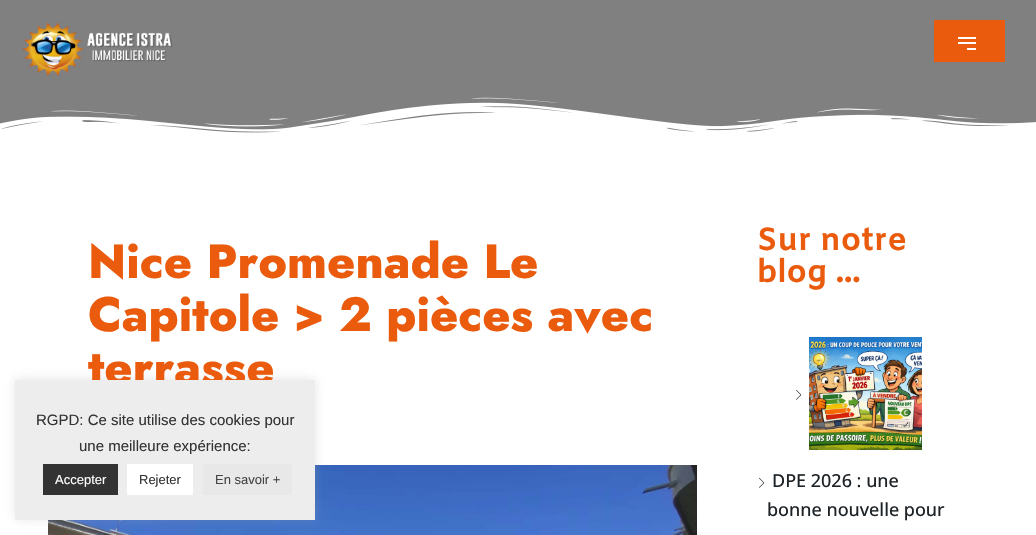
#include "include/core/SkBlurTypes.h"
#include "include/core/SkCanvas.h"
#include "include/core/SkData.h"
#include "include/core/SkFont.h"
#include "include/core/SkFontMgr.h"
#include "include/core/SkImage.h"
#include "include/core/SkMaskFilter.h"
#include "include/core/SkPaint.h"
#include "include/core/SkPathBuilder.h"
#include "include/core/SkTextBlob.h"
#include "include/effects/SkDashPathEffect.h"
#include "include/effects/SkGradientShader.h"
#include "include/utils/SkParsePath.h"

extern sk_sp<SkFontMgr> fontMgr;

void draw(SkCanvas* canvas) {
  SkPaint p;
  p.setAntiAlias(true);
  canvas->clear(SK_ColorWHITE);
  p.setColor(SkColorSetRGB(128, 128, 128));
  canvas->drawRect(SkRect::MakeLTRB(0, 0, 1036, 133), p);
  canvas->drawImageRect(SkImages::DeferredFromEncodedData(SkData::MakeFromFileName("images/1.png")), SkRect::MakeLTRB(22, 22, 173, 77), SkSamplingOptions());
  p.setColor(SkColorSetRGB(234, 91, 13));
  canvas->drawRect(SkRect::MakeLTRB(934, 20, 1005, 62), p);
  p.setColor(SK_ColorWHITE);
  canvas->drawRect(SkRect::MakeLTRB(958, 37, 976, 39), p);
  canvas->drawRect(SkRect::MakeLTRB(958, 42, 976, 44), p);
  canvas->drawRect(SkRect::MakeLTRB(967, 48, 976, 50), p);
  canvas->drawImageRect(SkImages::DeferredFromEncodedData(SkData::MakeFromFileName("images/2.png")), SkRect::MakeLTRB(0, 97, 1036, 136), SkSamplingOptions());
  canvas->drawImageRect(SkImages::DeferredFromEncodedData(SkData::MakeFromFileName("images/3.png")), SkRect::MakeLTRB(48, 465, 697, 535), SkSamplingOptions());
  canvas->drawImageRect(SkImages::DeferredFromEncodedData(SkData::MakeFromFileName("images/4.png")), SkRect::MakeLTRB(796, 389, 802, 400), SkSamplingOptions());
  canvas->drawImageRect(SkImages::DeferredFromEncodedData(SkData::MakeFromFileName("images/5.png")), SkRect::MakeLTRB(809, 337, 922, 450), SkSamplingOptions());
  canvas->drawImageRect(SkImages::DeferredFromEncodedData(SkData::MakeFromFileName("images/4.png")), SkRect::MakeLTRB(759, 477, 765, 488), SkSamplingOptions());
  p.setColor(SkColorSetARGB(77, 172, 171, 171));
  p.setMaskFilter(SkMaskFilter::MakeBlur(kNormal_SkBlurStyle, 5));
  canvas->drawRect(SkRect::MakeLTRB(15, 379, 315, 519), p);
  p.setMaskFilter(nullptr);
  SkFont font1(fontMgr->matchFamilyStyle("Jost", SkFontStyle(800, SkFontStyle::kNormal_Width, SkFontStyle::kUpright_Slant)), 48);
  font1.setSubpixel(true);
  p.setColor(SkColorSetRGB(234, 91, 13));
  canvas->drawString("Nice Promenade Le", 88, 278, font1, p);
  canvas->drawString("Capitole > 2 pièces avec", 88, 331, font1, p);
  canvas->drawString("terrasse", 88, 384, font1, p);
  SkFont font2(fontMgr->matchFamilyStyle("Amiko", SkFontStyle::Bold()), 32);
  font2.setSubpixel(true);
  canvas->drawString("Sur notre", 757, 250, font2, p);
  canvas->drawString("blog ...", 757, 282, font2, p);
  SkFont font3(fontMgr->matchFamilyStyle("Open Sans", SkFontStyle(500, SkFontStyle::kNormal_Width, SkFontStyle::kUpright_Slant)), 18);
  font3.setSubpixel(true);
  p.setColor(SkColorSetRGB(29, 35, 39));
  canvas->drawString("DPE 2026 : une", 772, 487, font3, p);
  canvas->drawString("bonne nouvelle pour", 767, 516, font3, p);
  p.setColor(SkColorSetRGB(237, 237, 237));
  canvas->drawRect(SkRect::MakeLTRB(15, 380, 315, 520), p);
  SkFont font4(fontMgr->matchFamilyStyle("Liberation Sans", SkFontStyle::Normal()), 15);
  font4.setSubpixel(true);
  p.setColor(SkColorSetRGB(51, 51, 51));
  canvas->drawString("RGPD: Ce site utilise des cookies pour", 36, 425, font4, p);
  canvas->drawString("une meilleure expérience:", 79, 451, font4, p);
  canvas->drawRect(SkRect::MakeLTRB(43, 464, 118, 495), p);
  SkFont font5(fontMgr->matchFamilyStyle("Liberation Sans", SkFontStyle::Normal()), 13);
  font5.setSubpixel(true);
  p.setColor(SK_ColorWHITE);
  canvas->drawString("Accepter", 55, 484, font5, p);
  canvas->drawRect(SkRect::MakeLTRB(127, 464, 193, 495), p);
  p.setColor(SkColorSetRGB(51, 51, 51));
  canvas->drawString("Rejeter", 139, 484, font5, p);
  p.setColor(SkColorSetRGB(232, 232, 232));
  canvas->drawRect(SkRect::MakeLTRB(203, 464, 292, 495), p);
  p.setColor(SkColorSetRGB(68, 68, 68));
  canvas->drawString("En savoir +", 215, 484, font5, p);
}
